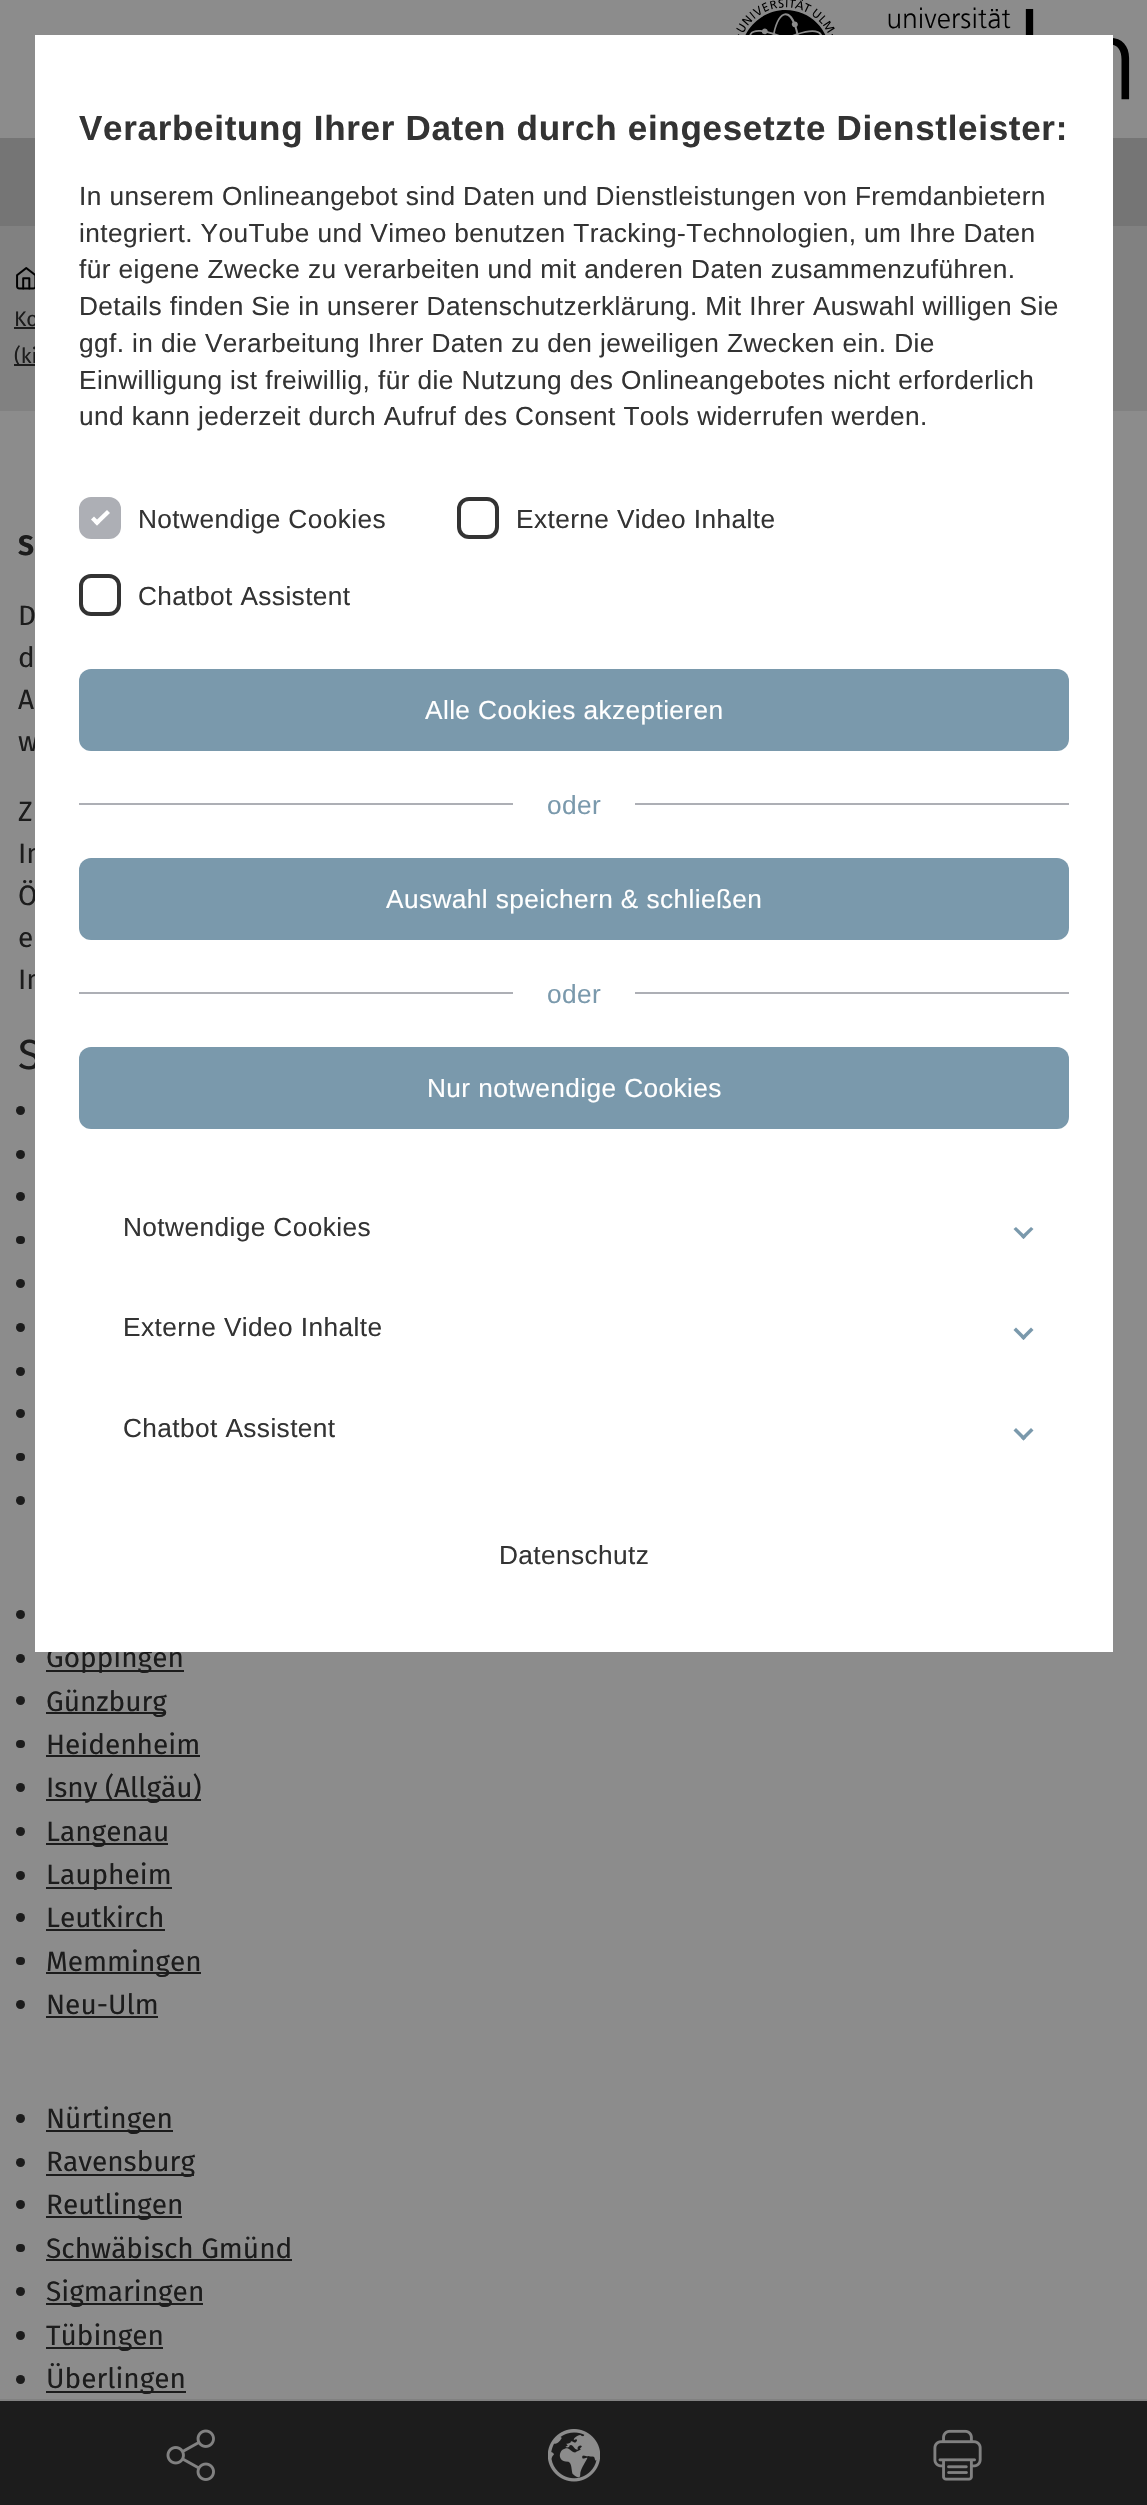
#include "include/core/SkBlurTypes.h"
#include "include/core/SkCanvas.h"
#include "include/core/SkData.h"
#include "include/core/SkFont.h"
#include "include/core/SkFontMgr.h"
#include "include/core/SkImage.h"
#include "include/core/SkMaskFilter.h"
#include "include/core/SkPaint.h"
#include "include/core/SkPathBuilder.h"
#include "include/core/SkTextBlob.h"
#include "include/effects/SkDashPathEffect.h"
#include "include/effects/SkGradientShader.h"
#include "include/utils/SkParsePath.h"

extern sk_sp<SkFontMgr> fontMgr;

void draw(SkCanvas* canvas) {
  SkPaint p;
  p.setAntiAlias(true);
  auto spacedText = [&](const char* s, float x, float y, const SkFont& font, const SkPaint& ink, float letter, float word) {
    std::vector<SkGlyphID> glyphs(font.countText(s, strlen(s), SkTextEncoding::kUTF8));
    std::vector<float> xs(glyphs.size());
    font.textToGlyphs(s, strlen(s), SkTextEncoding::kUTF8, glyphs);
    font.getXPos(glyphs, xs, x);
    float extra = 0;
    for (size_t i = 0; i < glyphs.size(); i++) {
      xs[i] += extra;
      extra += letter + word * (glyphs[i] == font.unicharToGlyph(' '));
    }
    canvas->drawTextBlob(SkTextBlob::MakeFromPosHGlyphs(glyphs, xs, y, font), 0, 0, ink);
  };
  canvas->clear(SkColorSetRGB(140, 140, 140));
  canvas->drawImageRect(SkImages::DeferredFromEncodedData(SkData::MakeFromFileName("images/1.png")), SkRect::MakeLTRB(736, 0, 1130, 100), SkSamplingOptions());
  p.setColor(SkColorSetRGB(117, 117, 117));
  canvas->drawRect(SkRect::MakeLTRB(0, 138, 1147, 226), p);
  p.setColor(SkColorSetRGB(129, 129, 129));
  canvas->drawRect(SkRect::MakeLTRB(0, 226, 1147, 411), p);
  canvas->drawImageRect(SkImages::DeferredFromEncodedData(SkData::MakeFromFileName("images/2.png")), SkRect::MakeLTRB(16, 267, 35, 290), SkSamplingOptions());
  p.setColor(SkColorSetRGB(28, 28, 28));
  canvas->drawRect(SkRect::MakeLTRB(14, 327, 35, 329), p);
  canvas->drawRect(SkRect::MakeLTRB(14, 364, 35, 366), p);
  p.setColor(SkColorSetRGB(129, 129, 129));
  canvas->drawRect(SkRect::MakeLTRB(0, 2399, 1147, 2401), p);
  p.setColor(SkColorSetRGB(28, 28, 28));
  canvas->drawRect(SkRect::MakeLTRB(0, 2401, 1147, 2505), p);
  canvas->drawImageRect(SkImages::DeferredFromEncodedData(SkData::MakeFromFileName("images/3.png")), SkRect::MakeLTRB(166, 2429, 215, 2481), SkSamplingOptions());
  canvas->drawImageRect(SkImages::DeferredFromEncodedData(SkData::MakeFromFileName("images/4.png")), SkRect::MakeLTRB(548, 2429, 600, 2482), SkSamplingOptions());
  canvas->drawImageRect(SkImages::DeferredFromEncodedData(SkData::MakeFromFileName("images/5.png")), SkRect::MakeLTRB(933, 2429, 982, 2481), SkSamplingOptions());
  canvas->drawCircle(20.5f, 1110.5f, 4.5f, p);
  canvas->drawCircle(20.5f, 1154.5f, 4.5f, p);
  canvas->drawCircle(20.5f, 1196.5f, 4.5f, p);
  canvas->drawRoundRect(SkRect::MakeLTRB(16, 1236, 25, 1244), 4, 4, p);
  canvas->drawCircle(20.5f, 1283.5f, 4.5f, p);
  canvas->drawCircle(20.5f, 1327.5f, 4.5f, p);
  canvas->drawCircle(20.5f, 1371.5f, 4.5f, p);
  canvas->drawCircle(20.5f, 1413.5f, 4.5f, p);
  canvas->drawRoundRect(SkRect::MakeLTRB(16, 1453, 25, 1461), 4, 4, p);
  canvas->drawCircle(20.5f, 1500.5f, 4.5f, p);
  canvas->drawCircle(20.5f, 1614.5f, 4.5f, p);
  canvas->drawCircle(20.5f, 1658.5f, 4.5f, p);
  canvas->drawRect(SkRect::MakeLTRB(46, 1670, 184, 1672), p);
  canvas->drawCircle(20.5f, 1700.5f, 4.5f, p);
  canvas->drawRect(SkRect::MakeLTRB(46, 1712, 166, 1714), p);
  canvas->drawRoundRect(SkRect::MakeLTRB(16, 1740, 25, 1748), 4, 4, p);
  canvas->drawRect(SkRect::MakeLTRB(46, 1755, 200, 1757), p);
  canvas->drawCircle(20.5f, 1787.5f, 4.5f, p);
  canvas->drawRect(SkRect::MakeLTRB(46, 1799, 201, 1801), p);
  canvas->drawCircle(20.5f, 1831.5f, 4.5f, p);
  canvas->drawRect(SkRect::MakeLTRB(46, 1843, 168, 1845), p);
  canvas->drawCircle(20.5f, 1875.5f, 4.5f, p);
  canvas->drawRect(SkRect::MakeLTRB(46, 1887, 172, 1889), p);
  canvas->drawCircle(20.5f, 1917.5f, 4.5f, p);
  canvas->drawRect(SkRect::MakeLTRB(46, 1929, 165, 1931), p);
  canvas->drawRoundRect(SkRect::MakeLTRB(16, 1957, 25, 1965), 4, 4, p);
  canvas->drawRect(SkRect::MakeLTRB(46, 1972, 201, 1974), p);
  canvas->drawCircle(20.5f, 2004.5f, 4.5f, p);
  canvas->drawRect(SkRect::MakeLTRB(46, 2016, 158, 2018), p);
  canvas->drawCircle(20.5f, 2118.5f, 4.5f, p);
  canvas->drawRect(SkRect::MakeLTRB(46, 2130, 173, 2132), p);
  canvas->drawCircle(20.5f, 2162.5f, 4.5f, p);
  canvas->drawRect(SkRect::MakeLTRB(46, 2174, 194, 2176), p);
  canvas->drawCircle(20.5f, 2204.5f, 4.5f, p);
  canvas->drawRect(SkRect::MakeLTRB(46, 2216, 182, 2218), p);
  canvas->drawRoundRect(SkRect::MakeLTRB(16, 2244, 25, 2252), 4, 4, p);
  canvas->drawRect(SkRect::MakeLTRB(46, 2259, 292, 2261), p);
  canvas->drawCircle(20.5f, 2291.5f, 4.5f, p);
  canvas->drawRect(SkRect::MakeLTRB(46, 2303, 203, 2305), p);
  canvas->drawCircle(20.5f, 2335.5f, 4.5f, p);
  canvas->drawRect(SkRect::MakeLTRB(46, 2347, 163, 2349), p);
  canvas->drawCircle(20.5f, 2379.5f, 4.5f, p);
  canvas->drawRect(SkRect::MakeLTRB(46, 2391, 186, 2393), p);
  SkFont font1(fontMgr->matchFamilyStyle("Fira Sans", SkFontStyle::Normal()), 21);
  font1.setSubpixel(true);
  canvas->drawString("Ko", 14, 326, font1, p);
  canvas->drawString("(ki", 14, 363, font1, p);
  SkFont font2(fontMgr->matchFamilyStyle("Fira Sans", SkFontStyle::Bold()), 28);
  font2.setSubpixel(true);
  canvas->drawString("S", 18, 555, font2, p);
  SkFont font3(fontMgr->matchFamilyStyle("Fira Sans", SkFontStyle::Normal()), 28);
  font3.setSubpixel(true);
  canvas->drawString("D", 18, 625, font3, p);
  canvas->drawString("d", 18, 667, font3, p);
  canvas->drawString("A", 18, 709, font3, p);
  canvas->drawString("w", 18, 751, font3, p);
  canvas->drawString("Z", 18, 821, font3, p);
  canvas->drawString("In", 18, 863, font3, p);
  canvas->drawString("Ö", 18, 905, font3, p);
  canvas->drawString("e", 18, 947, font3, p);
  canvas->drawString("In", 18, 989, font3, p);
  SkFont font4(fontMgr->matchFamilyStyle("Fira Sans", SkFontStyle::Normal()), 42);
  font4.setSubpixel(true);
  spacedText("S", 18, 1069, font4, p, 1, 0);
  canvas->drawString("Göppingen", 46, 1667, font3, p);
  p.setColor(SK_ColorWHITE);
  canvas->drawRect(SkRect::MakeLTRB(35, 35, 1113, 1652), p);
  p.setColor(SkColorSetRGB(122, 153, 172));
  canvas->drawPath(SkPathBuilder().moveTo(1031, 1428).lineTo(1033.5f, 1430.5f).lineTo(1023.5f, 1440.5f).lineTo(1021, 1438).close().detach(), p);
  canvas->drawPath(SkPathBuilder().moveTo(1016, 1428).lineTo(1026, 1438).lineTo(1023.5f, 1440.5f).lineTo(1013.5f, 1430.5f).close().detach(), p);
  SkFont font5(fontMgr->matchFamilyStyle("Liberation Sans", SkFontStyle::Normal()), 26.25f);
  font5.setSubpixel(true);
  p.setColor(SkColorSetRGB(51, 51, 51));
  spacedText("Chatbot Assistent", 123, 1437, font5, p, 0.4f, 0);
  p.setColor(SkColorSetRGB(122, 153, 172));
  canvas->drawPath(SkPathBuilder().moveTo(1031, 1327.5f).lineTo(1033.5f, 1330).lineTo(1023.5f, 1340).lineTo(1021, 1337.5f).close().detach(), p);
  canvas->drawPath(SkPathBuilder().moveTo(1016, 1327.5f).lineTo(1026, 1337.5f).lineTo(1023.5f, 1340).lineTo(1013.5f, 1330).close().detach(), p);
  p.setColor(SkColorSetRGB(51, 51, 51));
  spacedText("Externe Video Inhalte", 123, 1336, font5, p, 0.4f, 0);
  p.setColor(SkColorSetRGB(122, 153, 172));
  canvas->drawPath(SkPathBuilder().moveTo(1031, 1227).lineTo(1033.5f, 1229).lineTo(1023.5f, 1239).lineTo(1021, 1236.5f).close().detach(), p);
  canvas->drawPath(SkPathBuilder().moveTo(1016, 1227).lineTo(1026, 1236.5f).lineTo(1023.5f, 1239).lineTo(1013.5f, 1229).close().detach(), p);
  p.setColor(SkColorSetRGB(51, 51, 51));
  spacedText("Notwendige Cookies", 123, 1236, font5, p, 0.4f, 0);
  spacedText("Chatbot Assistent", 138, 605, font5, p, 0.4f, 0);
  p.setStyle(SkPaint::kStroke_Style);
  p.setStrokeWidth(4);
  canvas->drawRoundRect(SkRect::MakeLTRB(81, 576, 119, 614), 10, 10, p);
  p.setStyle(SkPaint::kFill_Style);
  spacedText("Externe Video Inhalte", 516, 528, font5, p, 0.4f, 0);
  p.setStyle(SkPaint::kStroke_Style);
  canvas->drawRoundRect(SkRect::MakeLTRB(459, 499, 497, 537), 10, 10, p);
  p.setStyle(SkPaint::kFill_Style);
  p.setColor(SkColorSetRGB(173, 175, 181));
  canvas->drawRoundRect(SkRect::MakeLTRB(81, 499, 119, 537), 10, 10, p);
  p.setStyle(SkPaint::kStroke_Style);
  canvas->drawRoundRect(SkRect::MakeLTRB(81, 499, 119, 537), 10, 10, p);
  p.setStyle(SkPaint::kFill_Style);
  p.setColor(SK_ColorWHITE);
  canvas->drawPath(SkPathBuilder().moveTo(94, 522.5f).lineTo(107, 510).lineTo(110, 513).lineTo(97, 525.5f).close().detach(), p);
  canvas->drawPath(SkPathBuilder().moveTo(91, 519.5f).lineTo(94, 516.5f).lineTo(100, 522.5f).lineTo(97, 525.5f).close().detach(), p);
  p.setColor(SkColorSetRGB(51, 51, 51));
  spacedText("Notwendige Cookies", 138, 528, font5, p, 0.4f, 0);
  spacedText("Datenschutz", 499, 1564, font5, p, 0.4f, 0);
  p.setColor(SkColorSetRGB(122, 153, 172));
  canvas->drawRoundRect(SkRect::MakeLTRB(79, 1047, 1069, 1129), 12, 12, p);
  p.setColor(SK_ColorWHITE);
  spacedText("Nur notwendige Cookies", 427, 1097, font5, p, 0.4f, 0);
  p.setColor(SkColorSetRGB(173, 175, 181));
  canvas->drawRect(SkRect::MakeLTRB(635, 992, 1069, 994), p);
  p.setColor(SkColorSetRGB(122, 153, 172));
  spacedText("oder", 547, 1003, font5, p, 0.4f, 0);
  p.setColor(SkColorSetRGB(173, 175, 181));
  canvas->drawRect(SkRect::MakeLTRB(79, 992, 513, 994), p);
  p.setColor(SkColorSetRGB(122, 153, 172));
  canvas->drawRoundRect(SkRect::MakeLTRB(79, 858, 1069, 940), 12, 12, p);
  p.setColor(SK_ColorWHITE);
  spacedText("Auswahl speichern & schließen", 386, 908, font5, p, 0.4f, 0);
  p.setColor(SkColorSetRGB(173, 175, 181));
  canvas->drawRect(SkRect::MakeLTRB(635, 803, 1069, 805), p);
  p.setColor(SkColorSetRGB(122, 153, 172));
  spacedText("oder", 547, 814, font5, p, 0.4f, 0);
  p.setColor(SkColorSetRGB(173, 175, 181));
  canvas->drawRect(SkRect::MakeLTRB(79, 803, 513, 805), p);
  p.setColor(SkColorSetRGB(122, 153, 172));
  canvas->drawRoundRect(SkRect::MakeLTRB(79, 669, 1069, 751), 12, 12, p);
  p.setColor(SK_ColorWHITE);
  spacedText("Alle Cookies akzeptieren", 425, 719, font5, p, 0.4f, 0);
  p.setColor(SkColorSetRGB(51, 51, 51));
  spacedText("und kann jederzeit durch Aufruf des Consent Tools widerrufen werden.", 79, 425, font5, p, 0.4f, 0);
  spacedText("Einwilligung ist freiwillig, für die Nutzung des Onlineangebotes nicht erforderlich", 79, 389, font5, p, 0.4f, 0);
  spacedText("ggf. in die Verarbeitung Ihrer Daten zu den jeweiligen Zwecken ein. Die", 79, 352, font5, p, 0.4f, 0);
  spacedText("Details finden Sie in unserer Datenschutzerklärung. Mit Ihrer Auswahl willigen Sie", 79, 315, font5, p, 0.4f, 0);
  spacedText("für eigene Zwecke zu verarbeiten und mit anderen Daten zusammenzuführen.", 79, 278, font5, p, 0.4f, 0);
  spacedText("integriert. YouTube und Vimeo benutzen Tracking-Technologien, um Ihre Daten", 79, 242, font5, p, 0.4f, 0);
  spacedText("In unserem Onlineangebot sind Daten und Dienstleistungen von Fremdanbietern", 79, 205, font5, p, 0.4f, 0);
  SkFont font6(fontMgr->matchFamilyStyle("Liberation Sans", SkFontStyle::Bold()), 35);
  font6.setSubpixel(true);
  spacedText("Verarbeitung Ihrer Daten durch eingesetzte Dienstleister:", 79, 140, font6, p, 0.7f, 0);
  p.setColor(SkColorSetRGB(28, 28, 28));
  canvas->drawString("Günzburg", 46, 1711, font3, p);
  canvas->drawString("Heidenheim", 46, 1754, font3, p);
  canvas->drawString("Isny (Allgäu)", 46, 1797, font3, p);
  canvas->drawString("Langenau", 46, 1841, font3, p);
  canvas->drawString("Laupheim", 46, 1884, font3, p);
  canvas->drawString("Leutkirch", 46, 1927, font3, p);
  canvas->drawString("Memmingen", 46, 1971, font3, p);
  canvas->drawString("Neu-Ulm", 46, 2014, font3, p);
  canvas->drawString("Nürtingen", 46, 2128, font3, p);
  canvas->drawString("Ravensburg", 46, 2171, font3, p);
  canvas->drawString("Reutlingen", 46, 2214, font3, p);
  canvas->drawString("Schwäbisch Gmünd", 46, 2258, font3, p);
  canvas->drawString("Sigmaringen", 46, 2301, font3, p);
  canvas->drawString("Tübingen", 46, 2345, font3, p);
  canvas->drawString("Überlingen", 46, 2388, font3, p);
}
